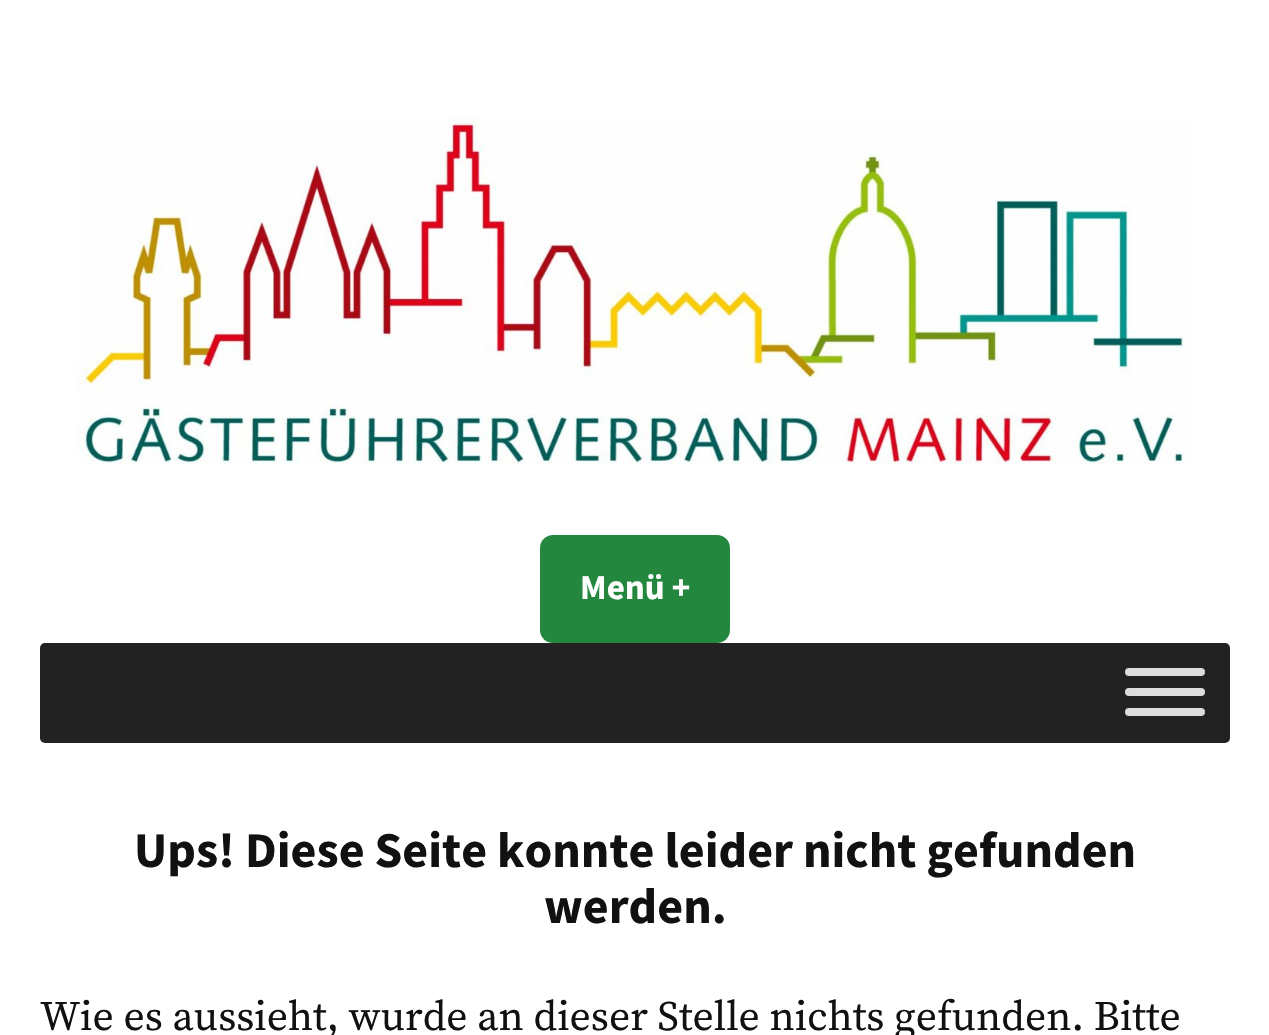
#include "include/core/SkBlurTypes.h"
#include "include/core/SkCanvas.h"
#include "include/core/SkData.h"
#include "include/core/SkFont.h"
#include "include/core/SkFontMgr.h"
#include "include/core/SkImage.h"
#include "include/core/SkMaskFilter.h"
#include "include/core/SkPaint.h"
#include "include/core/SkPathBuilder.h"
#include "include/core/SkTextBlob.h"
#include "include/effects/SkDashPathEffect.h"
#include "include/effects/SkGradientShader.h"
#include "include/utils/SkParsePath.h"

extern sk_sp<SkFontMgr> fontMgr;

void draw(SkCanvas* canvas) {
  SkPaint p;
  p.setAntiAlias(true);
  canvas->clear(SK_ColorWHITE);
  canvas->drawImageRect(SkImages::DeferredFromEncodedData(SkData::MakeFromFileName("images/1.png")), SkRect::MakeLTRB(77, 117, 1193, 465), SkSamplingOptions());
  p.setColor(SkColorSetRGB(35, 136, 61));
  canvas->drawRoundRect(SkRect::MakeLTRB(540, 535, 730, 643), 13, 13, p);
  p.setColor(SkColorSetRGB(34, 34, 34));
  canvas->drawRoundRect(SkRect::MakeLTRB(40, 643, 1230, 743), 5, 5, p);
  p.setColor(SkColorSetRGB(221, 221, 221));
  canvas->drawRoundRect(SkRect::MakeLTRB(1125, 668, 1205, 676), 4, 4, p);
  canvas->drawRoundRect(SkRect::MakeLTRB(1125, 688, 1205, 696), 4, 4, p);
  canvas->drawRoundRect(SkRect::MakeLTRB(1125, 708, 1205, 716), 4, 4, p);
  SkFont font1(fontMgr->matchFamilyStyle("Source Sans Pro", SkFontStyle::Bold()), 35);
  font1.setSubpixel(true);
  p.setColor(SK_ColorWHITE);
  canvas->drawString("Menü +", 580, 599, font1, p);
  SkFont font2(fontMgr->matchFamilyStyle("Source Sans Pro", SkFontStyle::Bold()), 50);
  font2.setSubpixel(true);
  p.setColor(SkColorSetRGB(17, 17, 17));
  canvas->drawString("Ups! Diese Seite konnte leider nicht gefunden", 134, 867, font2, p);
  canvas->drawString("werden.", 544, 923, font2, p);
  SkFont font3(fontMgr->matchFamilyStyle("Source Serif Pro", SkFontStyle::Normal()), 41.7f);
  font3.setSubpixel(true);
  canvas->drawString("Wie es aussieht, wurde an dieser Stelle nichts gefunden. Bitte", 40, 1030, font3, p);
}
